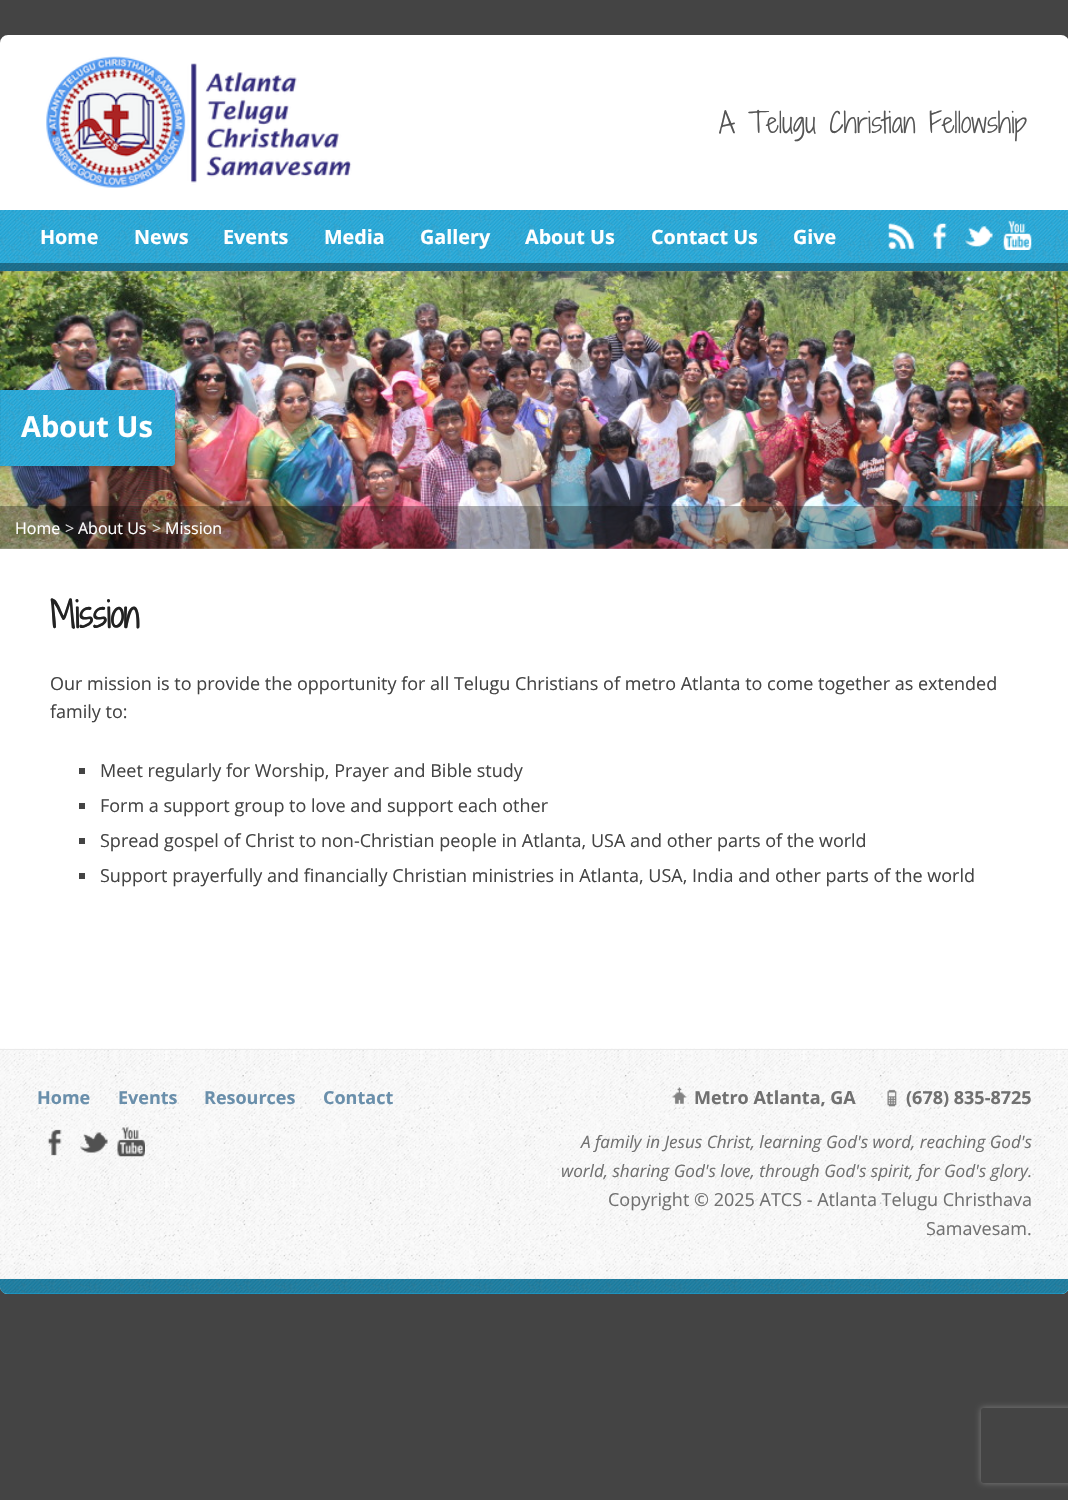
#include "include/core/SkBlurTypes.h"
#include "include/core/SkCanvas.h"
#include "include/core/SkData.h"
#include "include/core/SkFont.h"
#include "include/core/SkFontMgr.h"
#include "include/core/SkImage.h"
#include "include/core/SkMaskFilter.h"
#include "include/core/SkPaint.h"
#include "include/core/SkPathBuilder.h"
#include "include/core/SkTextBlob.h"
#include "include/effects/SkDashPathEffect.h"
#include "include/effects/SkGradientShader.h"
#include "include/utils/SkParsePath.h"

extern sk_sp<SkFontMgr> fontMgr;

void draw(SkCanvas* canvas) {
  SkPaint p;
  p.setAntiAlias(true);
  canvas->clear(SkColorSetRGB(68, 68, 68));
  p.setColor(SK_ColorWHITE);
  canvas->drawRoundRect(SkRect::MakeLTRB(0, 35, 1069, 1294), 8, 8, p);
  canvas->drawImageRect(SkImages::DeferredFromEncodedData(SkData::MakeFromFileName("images/1.png")), SkRect::MakeLTRB(46, 56, 352, 188), SkSamplingOptions());
  p.setColor(SkColorSetRGB(23, 175, 231));
  canvas->drawRect(SkRect::MakeLTRB(0, 210, 1068, 271), p);
  canvas->drawImageRect(SkImages::DeferredFromEncodedData(SkData::MakeFromFileName("images/2.png")), SkRect::MakeLTRB(0, 210, 1068, 272), SkSamplingOptions());
  canvas->drawImageRect(SkImages::DeferredFromEncodedData(SkData::MakeFromFileName("images/3.png")), SkRect::MakeLTRB(888, 223, 914, 249), SkSamplingOptions());
  canvas->drawImageRect(SkImages::DeferredFromEncodedData(SkData::MakeFromFileName("images/4.png")), SkRect::MakeLTRB(932, 223, 947, 249), SkSamplingOptions());
  canvas->drawImageRect(SkImages::DeferredFromEncodedData(SkData::MakeFromFileName("images/5.png")), SkRect::MakeLTRB(965, 226, 993, 247), SkSamplingOptions());
  canvas->drawImageRect(SkImages::DeferredFromEncodedData(SkData::MakeFromFileName("images/6.png")), SkRect::MakeLTRB(1003, 221, 1032, 250), SkSamplingOptions());
  p.setColor(SkColorSetARGB(89, 0, 0, 0));
  canvas->drawRect(SkRect::MakeLTRB(0, 263, 1068, 272), p);
  canvas->drawImageRect(SkImages::DeferredFromEncodedData(SkData::MakeFromFileName("images/7.png")), SkRect::MakeLTRB(0, 271, 1068, 549), SkSamplingOptions());
  p.setColor(SkColorSetARGB(61, 0, 0, 0));
  p.setMaskFilter(SkMaskFilter::MakeBlur(kNormal_SkBlurStyle, 3));
  canvas->drawRoundRect(SkRect::MakeLTRB(-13, 393, 175, 469), 4, 4, p);
  p.setMaskFilter(nullptr);
  p.setColor(SkColorSetRGB(23, 175, 231));
  canvas->drawRoundRect(SkRect::MakeLTRB(-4, 390, 175, 466), 4, 4, p);
  canvas->drawImageRect(SkImages::DeferredFromEncodedData(SkData::MakeFromFileName("images/8.png")), SkRect::MakeLTRB(0, 390, 175, 467), SkSamplingOptions());
  p.setColor(SkColorSetARGB(77, 0, 0, 0));
  canvas->drawRect(SkRect::MakeLTRB(0, 506, 1068, 549), p);
  p.setColor(SkColorSetRGB(68, 68, 68));
  canvas->drawRect(SkRect::MakeLTRB(79, 768, 85, 774), p);
  canvas->drawRect(SkRect::MakeLTRB(79, 803, 85, 809), p);
  canvas->drawRect(SkRect::MakeLTRB(79, 838, 85, 844), p);
  canvas->drawRect(SkRect::MakeLTRB(79, 873, 85, 879), p);
  canvas->drawImageRect(SkImages::DeferredFromEncodedData(SkData::MakeFromFileName("images/9.png")), SkRect::MakeLTRB(0, 1048, 1068, 1279), SkSamplingOptions());
  p.setColor(SkColorSetRGB(234, 234, 234));
  canvas->drawRect(SkRect::MakeLTRB(0, 1049, 1068, 1050), p);
  canvas->drawImageRect(SkImages::DeferredFromEncodedData(SkData::MakeFromFileName("images/10.png")), SkRect::MakeLTRB(47, 1129, 62, 1156), SkSamplingOptions());
  canvas->drawImageRect(SkImages::DeferredFromEncodedData(SkData::MakeFromFileName("images/11.png")), SkRect::MakeLTRB(80, 1132, 108, 1153), SkSamplingOptions());
  canvas->drawImageRect(SkImages::DeferredFromEncodedData(SkData::MakeFromFileName("images/12.png")), SkRect::MakeLTRB(117, 1127, 145, 1157), SkSamplingOptions());
  canvas->drawImageRect(SkImages::DeferredFromEncodedData(SkData::MakeFromFileName("images/13.png")), SkRect::MakeLTRB(672, 1087, 687, 1104), SkSamplingOptions());
  canvas->drawImageRect(SkImages::DeferredFromEncodedData(SkData::MakeFromFileName("images/14.png")), SkRect::MakeLTRB(887, 1089, 897, 1107), SkSamplingOptions());
  p.setColor(SkColorSetRGB(23, 175, 231));
  canvas->drawPath(SkPathBuilder().moveTo(0, 1279).lineTo(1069, 1279).lineTo(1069, 1286.5f).cubicTo(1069, 1290.5f, 1065.5f, 1294, 1061.5f, 1294).lineTo(7.5f, 1294).cubicTo(3.5f, 1294, 0, 1290.5f, 0, 1286.5f).close().detach(), p);
  canvas->drawImageRect(SkImages::DeferredFromEncodedData(SkData::MakeFromFileName("images/15.png")), SkRect::MakeLTRB(0, 1278, 1068, 1294), SkSamplingOptions());
  canvas->save();
  canvas->clipPath(SkPathBuilder(SkPathFillType::kEvenOdd).moveTo(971, 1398).lineTo(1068, 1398).lineTo(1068, 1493).lineTo(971, 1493).close().moveTo(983.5f, 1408).lineTo(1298.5f, 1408).cubicTo(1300, 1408, 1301, 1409, 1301, 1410.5f).lineTo(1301, 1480.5f).cubicTo(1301, 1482, 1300, 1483, 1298.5f, 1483).lineTo(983.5f, 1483).cubicTo(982, 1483, 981, 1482, 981, 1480.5f).lineTo(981, 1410.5f).cubicTo(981, 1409, 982, 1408, 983.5f, 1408).close().detach(), true);
  p.setColor(SkColorSetRGB(128, 128, 128));
  p.setMaskFilter(SkMaskFilter::MakeBlur(kNormal_SkBlurStyle, 3));
  canvas->drawRoundRect(SkRect::MakeLTRB(981, 1408, 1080, 1483), 2.5f, 2.5f, p);
  p.setMaskFilter(nullptr);
  canvas->restore();
  SkFont font1(fontMgr->matchFamilyStyle("Shadows Into Light Two", SkFontStyle::Normal()), 27);
  font1.setSubpixel(true);
  p.setColor(SkColorSetRGB(85, 85, 85));
  canvas->drawString("A Telugu Christian Fellowship", 719, 133, font1, p);
  SkFont font2(fontMgr->matchFamilyStyle("Open Sans", SkFontStyle::Bold()), 19.75f);
  font2.setSubpixel(true);
  p.setColor(SK_ColorWHITE);
  canvas->drawString("Home", 40, 244, font2, p);
  canvas->drawString("News", 134, 244, font2, p);
  canvas->drawString("Events", 223, 244, font2, p);
  canvas->drawString("Media", 324, 244, font2, p);
  canvas->drawString("Gallery", 420, 244, font2, p);
  canvas->drawString("About Us", 525, 244, font2, p);
  canvas->drawString("Contact Us", 651, 244, font2, p);
  canvas->drawString("Give", 793, 244, font2, p);
  SkFont font3(fontMgr->matchFamilyStyle("Open Sans", SkFontStyle::Bold()), 29);
  font3.setSubpixel(true);
  canvas->drawString("About Us", 21, 437, font3, p);
  SkFont font4(fontMgr->matchFamilyStyle("Open Sans", SkFontStyle::Normal()), 16);
  font4.setSubpixel(true);
  canvas->drawString("Home", 15, 534, font4, p);
  p.setColor(SkColorSetRGB(221, 221, 221));
  canvas->drawString(">", 65, 534, font4, p);
  p.setColor(SK_ColorWHITE);
  canvas->drawString("About Us", 78, 534, font4, p);
  p.setColor(SkColorSetRGB(221, 221, 221));
  canvas->drawString(">", 152, 534, font4, p);
  p.setColor(SK_ColorWHITE);
  canvas->drawString("Mission", 165, 534, font4, p);
  SkFont font5(fontMgr->matchFamilyStyle("Shadows Into Light Two", SkFontStyle::Bold()), 34);
  font5.setSubpixel(true);
  p.setColor(SkColorSetRGB(34, 34, 34));
  canvas->drawString("Mission", 50, 628, font5, p);
  SkFont font6(fontMgr->matchFamilyStyle("Open Sans", SkFontStyle::Normal()), 18);
  font6.setSubpixel(true);
  p.setColor(SkColorSetRGB(68, 68, 68));
  canvas->drawString("Our mission is to provide the opportunity for all Telugu Christians of metro Atlanta to come together as extended", 50, 690, font6, p);
  canvas->drawString("family to:", 50, 718, font6, p);
  canvas->drawString("Meet regularly for Worship, Prayer and Bible study", 100, 777, font6, p);
  canvas->drawString("Form a support group to love and support each other", 100, 812, font6, p);
  canvas->drawString("Spread gospel of Christ to non-Christian people in Atlanta, USA and other parts of the world", 100, 847, font6, p);
  canvas->drawString("Support prayerfully and financially Christian ministries in Atlanta, USA, India and other parts of the world", 100, 882, font6, p);
  SkFont font7(fontMgr->matchFamilyStyle("Open Sans", SkFontStyle::Bold()), 18);
  font7.setSubpixel(true);
  p.setColor(SkColorSetRGB(106, 143, 171));
  canvas->drawString("Home", 37, 1104, font7, p);
  canvas->drawString("Events", 118, 1104, font7, p);
  canvas->drawString("Resources", 204, 1104, font7, p);
  canvas->drawString("Contact", 323, 1104, font7, p);
  p.setColor(SkColorSetRGB(113, 113, 113));
  canvas->drawString("Metro Atlanta, GA", 694, 1104, font7, p);
  canvas->drawString("(678) 835-8725", 906, 1104, font7, p);
  SkFont font8(fontMgr->matchFamilyStyle("Open Sans", SkFontStyle::Italic()), 17.1f);
  font8.setSubpixel(true);
  canvas->drawString("A family in Jesus Christ, learning God's word, reaching God's", 581, 1148, font8, p);
  canvas->drawString("world, sharing God's love, through God's spirit, for God's glory.", 561, 1177, font8, p);
  canvas->drawString("Copyright © 2025 ATCS - Atlanta Telugu Christhava", 608, 1206, font6, p);
  canvas->drawString("Samavesam.", 926, 1235, font6, p);
}
